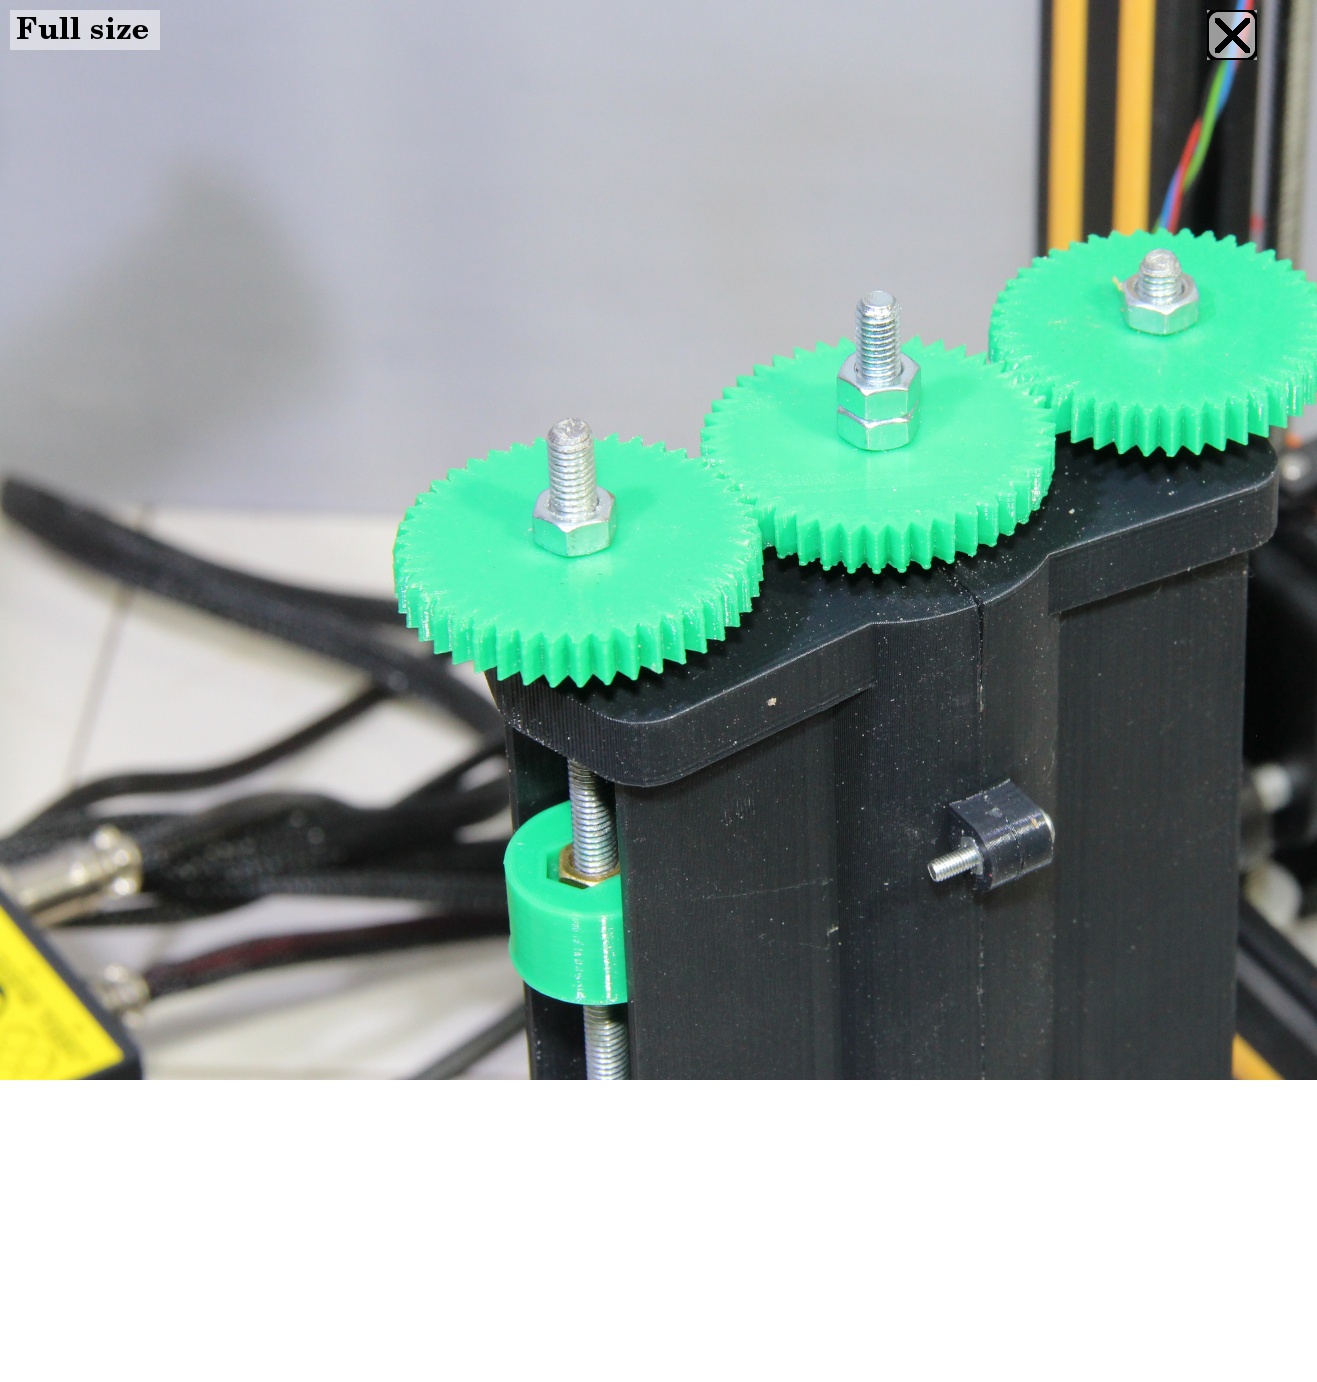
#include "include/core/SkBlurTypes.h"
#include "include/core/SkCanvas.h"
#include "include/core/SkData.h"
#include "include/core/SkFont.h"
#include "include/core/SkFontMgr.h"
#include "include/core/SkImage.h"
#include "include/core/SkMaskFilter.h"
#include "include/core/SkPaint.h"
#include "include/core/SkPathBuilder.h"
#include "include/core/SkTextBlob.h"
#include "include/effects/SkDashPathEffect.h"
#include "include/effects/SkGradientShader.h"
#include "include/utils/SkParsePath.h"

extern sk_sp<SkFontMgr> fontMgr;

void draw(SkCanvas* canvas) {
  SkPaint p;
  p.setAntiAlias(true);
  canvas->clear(SK_ColorWHITE);
  canvas->drawImageRect(SkImages::DeferredFromEncodedData(SkData::MakeFromFileName("images/1.png")), SkRect::MakeLTRB(0, 0, 1317, 1080), SkSamplingOptions());
  canvas->drawImageRect(SkImages::DeferredFromEncodedData(SkData::MakeFromFileName("images/2.png")), SkRect::MakeLTRB(10, 10, 160, 50), SkSamplingOptions());
  canvas->drawImageRect(SkImages::DeferredFromEncodedData(SkData::MakeFromFileName("images/3.png")), SkRect::MakeLTRB(1207, 10, 1257, 60), SkSamplingOptions());
}
